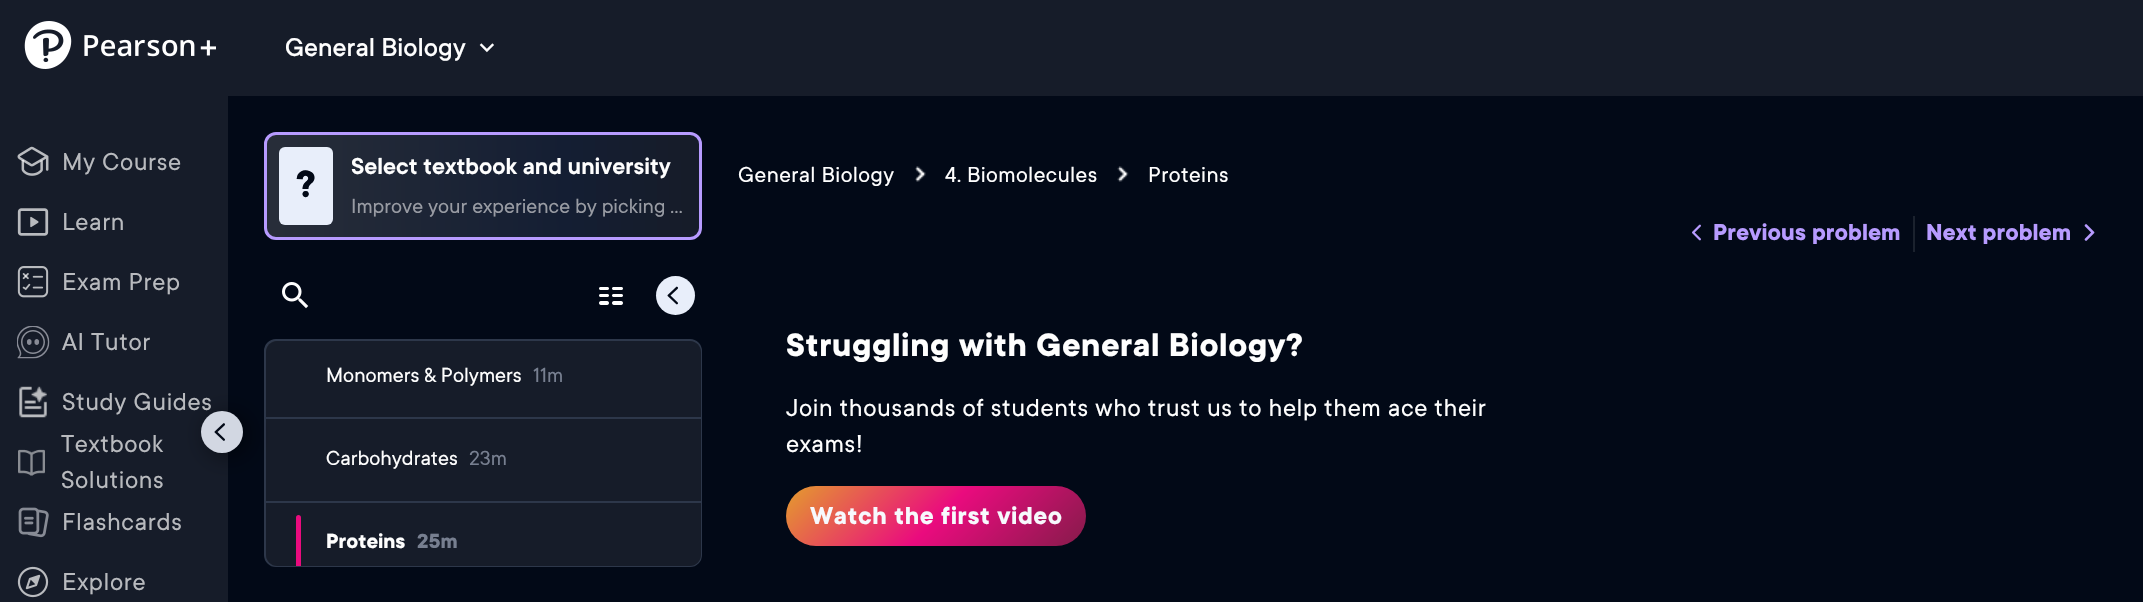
#include "include/core/SkBlurTypes.h"
#include "include/core/SkCanvas.h"
#include "include/core/SkData.h"
#include "include/core/SkFont.h"
#include "include/core/SkFontMgr.h"
#include "include/core/SkImage.h"
#include "include/core/SkMaskFilter.h"
#include "include/core/SkPaint.h"
#include "include/core/SkPathBuilder.h"
#include "include/core/SkTextBlob.h"
#include "include/effects/SkDashPathEffect.h"
#include "include/effects/SkGradientShader.h"
#include "include/utils/SkParsePath.h"

extern sk_sp<SkFontMgr> fontMgr;

void draw(SkCanvas* canvas) {
  SkPaint p;
  p.setAntiAlias(true);
  auto spacedText = [&](const char* s, float x, float y, const SkFont& font, const SkPaint& ink, float letter, float word) {
    std::vector<SkGlyphID> glyphs(font.countText(s, strlen(s), SkTextEncoding::kUTF8));
    std::vector<float> xs(glyphs.size());
    font.textToGlyphs(s, strlen(s), SkTextEncoding::kUTF8, glyphs);
    font.getXPos(glyphs, xs, x);
    float extra = 0;
    for (size_t i = 0; i < glyphs.size(); i++) {
      xs[i] += extra;
      extra += letter + word * (glyphs[i] == font.unicharToGlyph(' '));
    }
    canvas->drawTextBlob(SkTextBlob::MakeFromPosHGlyphs(glyphs, xs, y, font), 0, 0, ink);
  };
  canvas->clear(SkColorSetRGB(2, 9, 23));
  p.setColor(SkColorSetRGB(22, 28, 41));
  canvas->drawRect(SkRect::MakeLTRB(0, 0, 2143, 96), p);
  canvas->drawImageRect(SkImages::DeferredFromEncodedData(SkData::MakeFromFileName("images/1.png")), SkRect::MakeLTRB(24, 21, 72, 69), SkSamplingOptions());
  canvas->drawImageRect(SkImages::DeferredFromEncodedData(SkData::MakeFromFileName("images/2.png")), SkRect::MakeLTRB(84, 35, 216, 57), SkSamplingOptions());
  canvas->drawImageRect(SkImages::DeferredFromEncodedData(SkData::MakeFromFileName("images/3.png")), SkRect::MakeLTRB(479, 43, 494, 53), SkSamplingOptions());
  canvas->drawRect(SkRect::MakeLTRB(0, 96, 228, 602), p);
  canvas->drawImageRect(SkImages::DeferredFromEncodedData(SkData::MakeFromFileName("images/4.png")), SkRect::MakeLTRB(17, 146, 49, 176), SkSamplingOptions());
  canvas->drawImageRect(SkImages::DeferredFromEncodedData(SkData::MakeFromFileName("images/5.png")), SkRect::MakeLTRB(17, 208, 49, 236), SkSamplingOptions());
  canvas->drawImageRect(SkImages::DeferredFromEncodedData(SkData::MakeFromFileName("images/6.png")), SkRect::MakeLTRB(17, 266, 49, 298), SkSamplingOptions());
  canvas->drawImageRect(SkImages::DeferredFromEncodedData(SkData::MakeFromFileName("images/7.png")), SkRect::MakeLTRB(17, 326, 50, 359), SkSamplingOptions());
  canvas->drawImageRect(SkImages::DeferredFromEncodedData(SkData::MakeFromFileName("images/8.png")), SkRect::MakeLTRB(19, 386, 47, 418), SkSamplingOptions());
  canvas->drawImageRect(SkImages::DeferredFromEncodedData(SkData::MakeFromFileName("images/9.png")), SkRect::MakeLTRB(18, 449, 45, 476), SkSamplingOptions());
  canvas->drawImageRect(SkImages::DeferredFromEncodedData(SkData::MakeFromFileName("images/10.png")), SkRect::MakeLTRB(18, 507, 49, 538), SkSamplingOptions());
  canvas->drawImageRect(SkImages::DeferredFromEncodedData(SkData::MakeFromFileName("images/11.png")), SkRect::MakeLTRB(17, 566, 49, 598), SkSamplingOptions());
  p.setColor(SkColorSetRGB(39, 45, 57));
  canvas->drawRoundRect(SkRect::MakeLTRB(265, 340, 701, 566), 11, 11, p);
  p.setStyle(SkPaint::kStroke_Style);
  p.setStrokeWidth(2);
  p.setColor(SkColorSetRGB(45, 55, 74));
  canvas->drawRoundRect(SkRect::MakeLTRB(265, 340, 701, 566), 11, 11, p);
  p.setStyle(SkPaint::kFill_Style);
  p.setColor(SkColorSetRGB(22, 28, 41));
  canvas->drawPath(SkPathBuilder().moveTo(277, 341).lineTo(690, 341).cubicTo(696, 341, 701, 346, 701, 352).lineTo(701, 417).lineTo(266, 417).lineTo(266, 352).cubicTo(266, 346, 271, 341, 277, 341).close().detach(), p);
  p.setColor(SkColorSetRGB(45, 55, 74));
  canvas->drawRect(SkRect::MakeLTRB(266, 417, 701, 419), p);
  p.setColor(SkColorSetRGB(22, 28, 41));
  canvas->drawRect(SkRect::MakeLTRB(266, 419, 701, 501), p);
  p.setColor(SkColorSetARGB(143, 0, 0, 0));
  p.setMaskFilter(SkMaskFilter::MakeBlur(kNormal_SkBlurStyle, 12));
  canvas->drawRoundRect(SkRect::MakeLTRB(207, 414, 249, 456), 21, 21, p);
  p.setMaskFilter(nullptr);
  canvas->save();
  canvas->clipPath(SkPathBuilder().moveTo(276, 132).lineTo(690, 132).cubicTo(696.5f, 132, 702, 137.5f, 702, 144).lineTo(702, 228).cubicTo(702, 234.5f, 696.5f, 240, 690, 240).lineTo(276, 240).cubicTo(269.5f, 240, 264, 234.5f, 264, 228).lineTo(264, 144).cubicTo(264, 137.5f, 269.5f, 132, 276, 132).close().detach(), true);
  {
    const SkColor colors[] = {SkColorSetRGB(39, 45, 57), SkColorSetRGB(20, 30, 51), SkColorSetRGB(22, 28, 41)};
    const float stops[] = {0.02f, 0.69f, 0.97f};
    const SkPoint ends[] = {{266, 190}, {700, 182}};
    p.setShader(SkGradientShader::MakeLinear(ends, colors, stops, 3, SkTileMode::kClamp));
    p.setAlpha(255);
  }
  canvas->drawRect(SkRect::MakeLTRB(267, 135, 699, 237), p);
  canvas->restore();
  p.setStyle(SkPaint::kStroke_Style);
  p.setStrokeWidth(3);
  p.setShader(nullptr);
  p.setColor(SkColorSetRGB(183, 155, 255));
  canvas->drawRoundRect(SkRect::MakeLTRB(265.5f, 133.5f, 700.5f, 238.5f), 10.5f, 10.5f, p);
  p.setStyle(SkPaint::kFill_Style);
  p.setColor(SkColorSetRGB(232, 238, 250));
  canvas->drawRoundRect(SkRect::MakeLTRB(279, 147, 333, 225), 6, 6, p);
  canvas->drawImageRect(SkImages::DeferredFromEncodedData(SkData::MakeFromFileName("images/13.png")), SkRect::MakeLTRB(282, 282, 309, 309), SkSamplingOptions());
  canvas->drawImageRect(SkImages::DeferredFromEncodedData(SkData::MakeFromFileName("images/14.png")), SkRect::MakeLTRB(599, 287, 623, 305), SkSamplingOptions());
  canvas->drawCircle(675.5f, 295.5f, 19.5f, p);
  canvas->drawImageRect(SkImages::DeferredFromEncodedData(SkData::MakeFromFileName("images/15.png")), SkRect::MakeLTRB(667, 286, 678, 305), SkSamplingOptions());
  p.setColor(SkColorSetRGB(45, 55, 74));
  canvas->drawRect(SkRect::MakeLTRB(266, 501, 701, 503), p);
  p.setColor(SkColorSetRGB(22, 28, 41));
  canvas->drawPath(SkPathBuilder().moveTo(266, 503).lineTo(701, 503).lineTo(701, 555).cubicTo(701, 561, 696, 566, 690, 566).lineTo(277, 566).cubicTo(271, 566, 266, 561, 266, 555).close().detach(), p);
  p.setColor(SkColorSetRGB(234, 11, 126));
  canvas->drawPath(SkPathBuilder().moveTo(298.5f, 515).cubicTo(300, 515, 301, 516, 301, 517.5f).lineTo(301, 566).lineTo(296, 566).lineTo(296, 517.5f).cubicTo(296, 516, 297, 515, 298.5f, 515).close().detach(), p);
  canvas->drawImageRect(SkImages::DeferredFromEncodedData(SkData::MakeFromFileName("images/16.png")), SkRect::MakeLTRB(915, 166, 926, 182), SkSamplingOptions());
  canvas->drawImageRect(SkImages::DeferredFromEncodedData(SkData::MakeFromFileName("images/17.png")), SkRect::MakeLTRB(1117, 166, 1129, 182), SkSamplingOptions());
  canvas->drawImageRect(SkImages::DeferredFromEncodedData(SkData::MakeFromFileName("images/18.png")), SkRect::MakeLTRB(1692, 224, 1701, 241), SkSamplingOptions());
  p.setColor(SkColorSetRGB(27, 34, 46));
  canvas->drawRect(SkRect::MakeLTRB(1913, 216, 1915, 252), p);
  canvas->drawImageRect(SkImages::DeferredFromEncodedData(SkData::MakeFromFileName("images/19.png")), SkRect::MakeLTRB(2084, 224, 2095, 241), SkSamplingOptions());
  {
    const SkColor colors[] = {SkColorSetRGB(228, 157, 45), SkColorSetRGB(234, 11, 126), SkColorSetRGB(133, 27, 74)};
    const float stops[] = {0, 0.51f, 1};
    const SkPoint ends[] = {{846, 426}, {1026, 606}};
    p.setShader(SkGradientShader::MakeLinear(ends, colors, stops, 3, SkTileMode::kClamp));
    p.setAlpha(255);
  }
  canvas->drawRoundRect(SkRect::MakeLTRB(786, 486, 1086, 546), 30, 30, p);
  SkFont font1(fontMgr->matchFamilyStyle("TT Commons", SkFontStyle(500, SkFontStyle::kNormal_Width, SkFontStyle::kUpright_Slant)), 28.5f);
  font1.setSubpixel(true);
  p.setShader(nullptr);
  p.setColor(SkColorSetRGB(254, 254, 254));
  canvas->drawString("General Biology", 285, 56, font1, p);
  SkFont font2(fontMgr->matchFamilyStyle("TT Commons", SkFontStyle::Normal()), 27);
  font2.setSubpixel(true);
  p.setColor(SkColorSetRGB(184, 186, 190));
  spacedText("My Course", 62, 170, font2, p, 0.6f, 0);
  spacedText("Learn", 62, 230, font2, p, 0.6f, 0);
  spacedText("Exam Prep", 62, 290, font2, p, 0.6f, 0);
  spacedText("AI Tutor", 62, 350, font2, p, 0.6f, 0);
  spacedText("Study Guides", 62, 410, font2, p, 0.6f, 0);
  spacedText("Textbook", 61, 452, font2, p, 0.6f, 0);
  spacedText("Solutions", 61, 488, font2, p, 0.6f, 0);
  spacedText("Flashcards", 62, 530, font2, p, 0.6f, 0);
  spacedText("Explore", 62, 590, font2, p, 0.6f, 0);
  p.setColor(SkColorSetRGB(210, 215, 226));
  canvas->drawCircle(222, 432, 21, p);
  canvas->drawImageRect(SkImages::DeferredFromEncodedData(SkData::MakeFromFileName("images/12.png")), SkRect::MakeLTRB(214, 423, 225, 441), SkSamplingOptions());
  SkFont font3(fontMgr->matchFamilyStyle("TT Commons", SkFontStyle::Bold()), 42);
  font3.setSubpixel(true);
  p.setColor(SkColorSetRGB(2, 9, 23));
  canvas->drawString("?", 296, 197, font3, p);
  SkFont font4(fontMgr->matchFamilyStyle("TT Commons", SkFontStyle(600, SkFontStyle::kNormal_Width, SkFontStyle::kUpright_Slant)), 25.5f);
  font4.setSubpixel(true);
  p.setColor(SkColorSetRGB(254, 254, 254));
  canvas->drawString("Select textbook and university", 351, 174, font4, p);
  SkFont font5(fontMgr->matchFamilyStyle("TT Commons", SkFontStyle::Normal()), 22.5f);
  font5.setSubpixel(true);
  p.setColor(SkColorSetRGB(152, 155, 163));
  canvas->drawString("Improve your experience by picking …", 351, 213, font5, p);
  p.setColor(SkColorSetRGB(254, 254, 254));
  canvas->drawString("Monomers & Polymers", 326, 382, font5, p);
  p.setColor(SkColorSetRGB(119, 127, 144));
  canvas->drawString("11m", 533, 382, font5, p);
  p.setColor(SkColorSetRGB(254, 254, 254));
  canvas->drawString("Carbohydrates", 326, 465, font5, p);
  p.setColor(SkColorSetRGB(119, 127, 144));
  canvas->drawString("23m", 469, 465, font5, p);
  SkFont font6(fontMgr->matchFamilyStyle("TT Commons", SkFontStyle::Bold()), 22.5f);
  font6.setSubpixel(true);
  p.setColor(SkColorSetRGB(254, 254, 254));
  canvas->drawString("Proteins", 326, 548, font6, p);
  p.setColor(SkColorSetRGB(119, 127, 144));
  canvas->drawString("25m", 417, 548, font6, p);
  SkFont font7(fontMgr->matchFamilyStyle("TT Commons", SkFontStyle::Normal()), 24);
  font7.setSubpixel(true);
  p.setColor(SkColorSetRGB(254, 254, 254));
  spacedText("General Biology", 738, 182, font7, p, 0.4f, 0);
  spacedText("4. Biomolecules", 945, 182, font7, p, 0.4f, 0);
  spacedText("Proteins", 1148, 182, font7, p, 0.4f, 0);
  SkFont font8(fontMgr->matchFamilyStyle("TT Commons", SkFontStyle::Bold()), 25.5f);
  font8.setSubpixel(true);
  p.setColor(SkColorSetRGB(183, 155, 255));
  canvas->drawString("Previous problem", 1713, 240, font8, p);
  canvas->drawString("Next problem", 1926, 240, font8, p);
  SkFont font9(fontMgr->matchFamilyStyle("TT Commons", SkFontStyle::Bold()), 36);
  font9.setSubpixel(true);
  p.setColor(SkColorSetRGB(254, 254, 254));
  spacedText("Struggling with General Biology?", 786, 356, font9, p, 0.6f, 0);
  spacedText("Join thousands of students who trust us to help them ace their", 786, 416, font2, p, 0.6f, 0);
  spacedText("exams!", 786, 452, font2, p, 0.6f, 0);
  SkFont font10(fontMgr->matchFamilyStyle("TT Commons", SkFontStyle::Bold()), 27);
  font10.setSubpixel(true);
  p.setColor(SkColorSetRGB(247, 249, 253));
  spacedText("Watch the first video", 810, 524, font10, p, 0.6f, 0);
}
